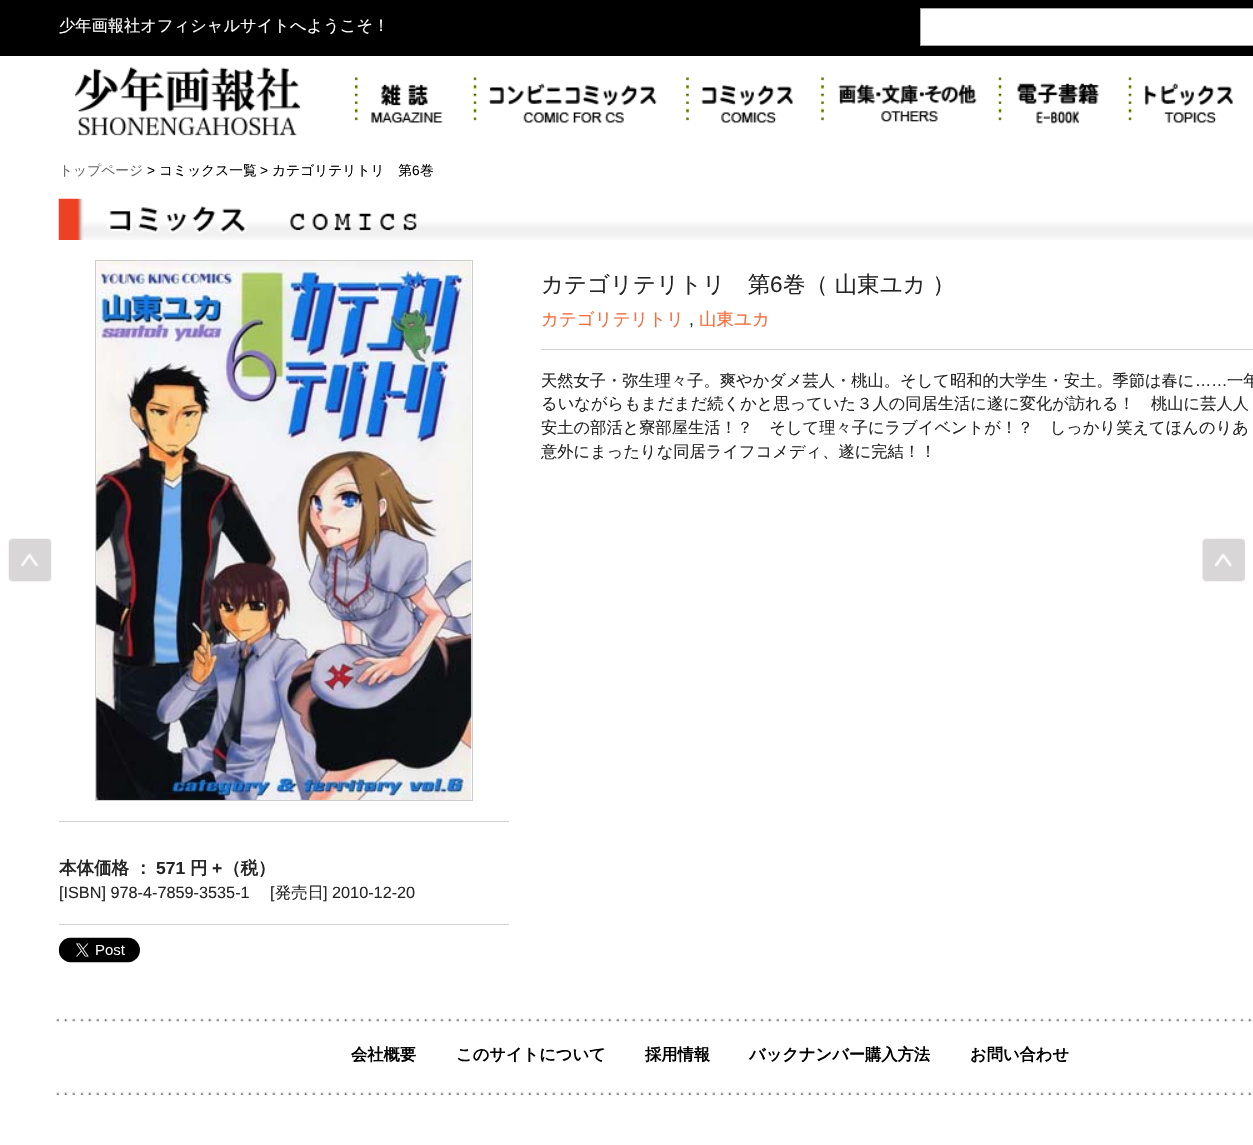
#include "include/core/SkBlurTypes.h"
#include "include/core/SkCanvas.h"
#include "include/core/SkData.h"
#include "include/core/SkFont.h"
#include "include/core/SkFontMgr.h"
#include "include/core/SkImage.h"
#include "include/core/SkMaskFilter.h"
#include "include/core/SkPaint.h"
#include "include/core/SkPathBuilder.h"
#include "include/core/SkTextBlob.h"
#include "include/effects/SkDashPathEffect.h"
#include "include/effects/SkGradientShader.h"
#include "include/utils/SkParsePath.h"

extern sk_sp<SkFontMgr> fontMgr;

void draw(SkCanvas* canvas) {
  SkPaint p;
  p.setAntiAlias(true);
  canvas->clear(SK_ColorWHITE);
  p.setColor(SK_ColorBLACK);
  canvas->drawRect(SkRect::MakeLTRB(0, 0, 1253, 56), p);
  p.setColor(SK_ColorWHITE);
  canvas->drawRect(SkRect::MakeLTRB(920.5f, 8.5f, 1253.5f, 45.5f), p);
  p.setStyle(SkPaint::kStroke_Style);
  p.setStrokeWidth(1);
  p.setColor(SkColorSetRGB(166, 166, 166));
  canvas->drawRect(SkRect::MakeLTRB(920.5f, 8.5f, 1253.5f, 45.5f), p);
  canvas->drawImageRect(SkImages::DeferredFromEncodedData(SkData::MakeFromFileName("images/1.png")), SkRect::MakeLTRB(74, 67, 301, 136), SkSamplingOptions());
  canvas->drawImageRect(SkImages::DeferredFromEncodedData(SkData::MakeFromFileName("images/2.png")), SkRect::MakeLTRB(355, 77, 358, 121), SkSamplingOptions());
  canvas->drawImageRect(SkImages::DeferredFromEncodedData(SkData::MakeFromFileName("images/3.png")), SkRect::MakeLTRB(371, 83, 443, 123), SkSamplingOptions());
  canvas->drawImageRect(SkImages::DeferredFromEncodedData(SkData::MakeFromFileName("images/4.png")), SkRect::MakeLTRB(473, 77, 477, 121), SkSamplingOptions());
  canvas->drawImageRect(SkImages::DeferredFromEncodedData(SkData::MakeFromFileName("images/5.png")), SkRect::MakeLTRB(488, 83, 657, 123), SkSamplingOptions());
  canvas->drawImageRect(SkImages::DeferredFromEncodedData(SkData::MakeFromFileName("images/6.png")), SkRect::MakeLTRB(686, 77, 689, 121), SkSamplingOptions());
  canvas->drawImageRect(SkImages::DeferredFromEncodedData(SkData::MakeFromFileName("images/7.png")), SkRect::MakeLTRB(701, 84, 793, 123), SkSamplingOptions());
  canvas->drawImageRect(SkImages::DeferredFromEncodedData(SkData::MakeFromFileName("images/6.png")), SkRect::MakeLTRB(821, 77, 824, 121), SkSamplingOptions());
  canvas->drawImageRect(SkImages::DeferredFromEncodedData(SkData::MakeFromFileName("images/8.png")), SkRect::MakeLTRB(838, 83, 977, 122), SkSamplingOptions());
  canvas->drawImageRect(SkImages::DeferredFromEncodedData(SkData::MakeFromFileName("images/4.png")), SkRect::MakeLTRB(998, 77, 1002, 121), SkSamplingOptions());
  canvas->drawImageRect(SkImages::DeferredFromEncodedData(SkData::MakeFromFileName("images/9.png")), SkRect::MakeLTRB(1017, 83, 1099, 124), SkSamplingOptions());
  canvas->drawImageRect(SkImages::DeferredFromEncodedData(SkData::MakeFromFileName("images/4.png")), SkRect::MakeLTRB(1128, 77, 1132, 121), SkSamplingOptions());
  canvas->drawImageRect(SkImages::DeferredFromEncodedData(SkData::MakeFromFileName("images/10.png")), SkRect::MakeLTRB(1144, 83, 1233, 123), SkSamplingOptions());
  canvas->drawImageRect(SkImages::DeferredFromEncodedData(SkData::MakeFromFileName("images/11.png")), SkRect::MakeLTRB(58, 198, 1253, 240), SkSamplingOptions());
  p.setStyle(SkPaint::kFill_Style);
  p.setColor(SkColorSetRGB(209, 209, 209));
  canvas->drawRect(SkRect::MakeLTRB(541, 349, 1253, 350), p);
  p.setStyle(SkPaint::kStroke_Style);
  p.setColor(SkColorSetRGB(204, 204, 204));
  canvas->drawRect(SkRect::MakeLTRB(95.5f, 260.5f, 472.5f, 800.5f), p);
  canvas->drawImageRect(SkImages::DeferredFromEncodedData(SkData::MakeFromFileName("images/12.png")), SkRect::MakeLTRB(96, 261, 472, 800), SkSamplingOptions());
  p.setStyle(SkPaint::kFill_Style);
  p.setColor(SkColorSetRGB(209, 209, 209));
  canvas->drawRect(SkRect::MakeLTRB(59, 821, 509, 822), p);
  canvas->drawRect(SkRect::MakeLTRB(59, 924, 509, 925), p);
  canvas->drawImageRect(SkImages::DeferredFromEncodedData(SkData::MakeFromFileName("images/13.png")), SkRect::MakeLTRB(58, 937, 140, 963), SkSamplingOptions());
  canvas->drawImageRect(SkImages::DeferredFromEncodedData(SkData::MakeFromFileName("images/14.png")), SkRect::MakeLTRB(8, 538, 52, 582), SkSamplingOptions());
  canvas->drawImageRect(SkImages::DeferredFromEncodedData(SkData::MakeFromFileName("images/15.png")), SkRect::MakeLTRB(1202, 538, 1245, 582), SkSamplingOptions());
  canvas->drawImageRect(SkImages::DeferredFromEncodedData(SkData::MakeFromFileName("images/16.png")), SkRect::MakeLTRB(56, 1018, 1252, 1022), SkSamplingOptions());
  canvas->drawImageRect(SkImages::DeferredFromEncodedData(SkData::MakeFromFileName("images/17.png")), SkRect::MakeLTRB(56, 1092, 1252, 1095), SkSamplingOptions());
  SkFont font1(fontMgr->matchFamilyStyle("WenQuanYi Zen Hei", SkFontStyle(500, SkFontStyle::kNormal_Width, SkFontStyle::kUpright_Slant)), 16.25f);
  font1.setSubpixel(true);
  p.setColor(SK_ColorWHITE);
  canvas->drawString("少年画報社オフィシャルサイトへようこそ！", 59, 31, font1, p);
  SkFont font2(fontMgr->matchFamilyStyle("WenQuanYi Zen Hei", SkFontStyle(500, SkFontStyle::kNormal_Width, SkFontStyle::kUpright_Slant)), 13.75f);
  font2.setSubpixel(true);
  p.setColor(SkColorSetRGB(105, 105, 105));
  canvas->drawString("トップページ", 59, 175, font2, p);
  SkFont font3(fontMgr->matchFamilyStyle("Liberation Sans", SkFontStyle::Normal()), 13.75f);
  font3.setSubpixel(true);
  p.setColor(SK_ColorBLACK);
  canvas->drawString(">", 147, 175, font3, p);
  canvas->drawString("コミックス一覧", 159, 175, font2, p);
  canvas->drawString(">", 260, 175, font3, p);
  canvas->drawString("カテゴリテリトリ　第", 272, 175, font2, p);
  canvas->drawString("6", 412, 175, font3, p);
  canvas->drawString("巻", 420, 175, font2, p);
  SkFont font4(fontMgr->matchFamilyStyle("WenQuanYi Zen Hei", SkFontStyle(500, SkFontStyle::kNormal_Width, SkFontStyle::kUpright_Slant)), 22.5f);
  font4.setSubpixel(true);
  p.setColor(SkColorSetRGB(37, 37, 37));
  canvas->drawString("カテゴリテリトリ　第", 541, 292, font4, p);
  SkFont font5(fontMgr->matchFamilyStyle("Liberation Sans", SkFontStyle::Normal()), 22.5f);
  font5.setSubpixel(true);
  canvas->drawString("6", 770, 292, font5, p);
  canvas->drawString("巻（ 山東ユカ ）", 783, 292, font4, p);
  SkFont font6(fontMgr->matchFamilyStyle("WenQuanYi Zen Hei", SkFontStyle(500, SkFontStyle::kNormal_Width, SkFontStyle::kUpright_Slant)), 17.5f);
  font6.setSubpixel(true);
  p.setColor(SkColorSetRGB(246, 107, 55));
  canvas->drawString("カテゴリテリトリ", 541, 325, font6, p);
  SkFont font7(fontMgr->matchFamilyStyle("Liberation Sans", SkFontStyle::Normal()), 17.5f);
  font7.setSubpixel(true);
  p.setColor(SkColorSetRGB(37, 37, 37));
  canvas->drawString(",", 689, 325, font7, p);
  p.setColor(SkColorSetRGB(246, 107, 55));
  canvas->drawString("山東ユカ", 699, 325, font6, p);
  p.setColor(SkColorSetRGB(37, 37, 37));
  canvas->drawString("天然女子・弥生理々子。爽やかダメ芸人・桃山。そして昭和的大学生・安土。季節は春に", 541, 386, font1, p);
  SkFont font8(fontMgr->matchFamilyStyle("Liberation Sans", SkFontStyle::Normal()), 16.25f);
  font8.setSubpixel(true);
  canvas->drawString("……", 1195, 386, font8, p);
  canvas->drawString("一年", 1227, 386, font1, p);
  canvas->drawString("るいながらもまだまだ続くかと思っていた３人の同居生活に遂に変化が訪れる！　桃山に芸人人", 541, 409, font1, p);
  canvas->drawString("安土の部活と寮部屋生活！？　そして理々子にラブイベントが！？　しっかり笑えてほんのりあ", 541, 433, font1, p);
  canvas->drawString("意外にまったりな同居ライフコメディ、遂に完結！！", 541, 457, font1, p);
  SkFont font9(fontMgr->matchFamilyStyle("WenQuanYi Zen Hei", SkFontStyle::Bold()), 17.5f);
  font9.setSubpixel(true);
  canvas->drawString("本体価格 ：", 59, 874, font9, p);
  SkFont font10(fontMgr->matchFamilyStyle("Liberation Sans", SkFontStyle::Bold()), 17.5f);
  font10.setSubpixel(true);
  canvas->drawString("571", 156, 874, font10, p);
  canvas->drawString("円", 190, 874, font9, p);
  canvas->drawString("+", 212, 874, font10, p);
  canvas->drawString("（税）", 223, 874, font9, p);
  canvas->drawString("[ISBN] 978-4-7859-3535-1", 59, 898, font8, p);
  canvas->drawString("[", 270, 898, font8, p);
  canvas->drawString("発売日", 275, 898, font1, p);
  canvas->drawString("] 2010-12-20", 323, 898, font8, p);
  SkFont font11(fontMgr->matchFamilyStyle("WenQuanYi Zen Hei", SkFontStyle::Bold()), 16.25f);
  font11.setSubpixel(true);
  p.setColor(SK_ColorBLACK);
  canvas->drawString("会社概要", 351, 1060, font11, p);
  canvas->drawString("このサイトについて", 456, 1060, font11, p);
  canvas->drawString("採用情報", 645, 1060, font11, p);
  canvas->drawString("バックナンバー購入方法", 749, 1060, font11, p);
  canvas->drawString("お問い合わせ", 970, 1060, font11, p);
}
